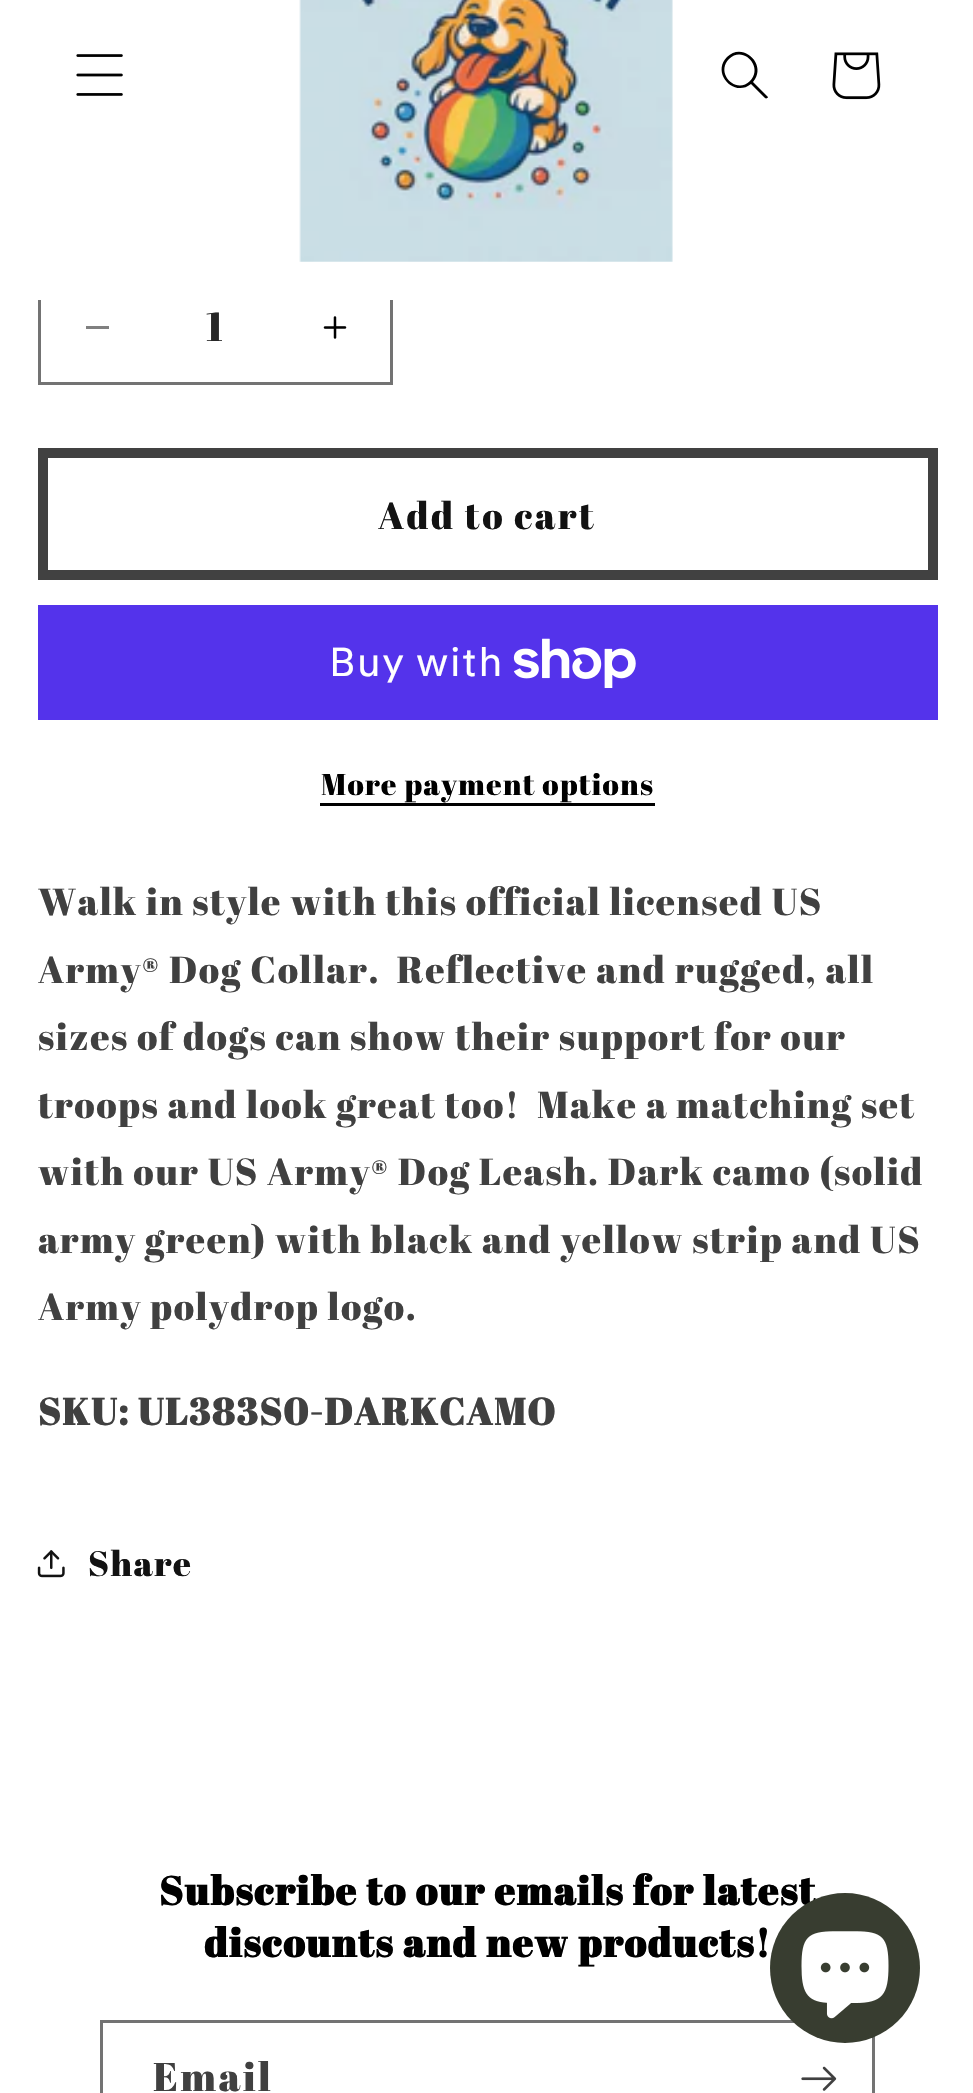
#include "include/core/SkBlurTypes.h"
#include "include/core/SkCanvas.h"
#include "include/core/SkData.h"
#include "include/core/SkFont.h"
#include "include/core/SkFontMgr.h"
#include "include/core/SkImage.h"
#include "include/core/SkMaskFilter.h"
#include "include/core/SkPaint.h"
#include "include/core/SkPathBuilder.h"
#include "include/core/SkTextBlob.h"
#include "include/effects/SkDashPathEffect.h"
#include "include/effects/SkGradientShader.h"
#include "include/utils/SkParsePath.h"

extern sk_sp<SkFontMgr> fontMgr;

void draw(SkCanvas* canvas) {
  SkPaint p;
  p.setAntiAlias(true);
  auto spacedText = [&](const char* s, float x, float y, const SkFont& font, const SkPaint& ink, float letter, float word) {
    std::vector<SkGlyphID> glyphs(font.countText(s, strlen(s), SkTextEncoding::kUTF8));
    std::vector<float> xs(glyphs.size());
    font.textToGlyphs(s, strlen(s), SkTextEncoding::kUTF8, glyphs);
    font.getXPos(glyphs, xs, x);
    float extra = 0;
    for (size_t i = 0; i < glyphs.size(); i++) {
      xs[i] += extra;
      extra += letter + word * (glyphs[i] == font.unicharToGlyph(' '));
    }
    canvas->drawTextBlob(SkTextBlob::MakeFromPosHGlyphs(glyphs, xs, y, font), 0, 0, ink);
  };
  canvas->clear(SK_ColorWHITE);
  p.setColor(SkColorSetRGB(128, 128, 128));
  canvas->drawRect(SkRect::MakeLTRB(86, 326, 109, 329), p);
  canvas->drawImageRect(SkImages::DeferredFromEncodedData(SkData::MakeFromFileName("images/4.png")), SkRect::MakeLTRB(323, 316, 347, 339), SkSamplingOptions());
  p.setStyle(SkPaint::kStroke_Style);
  p.setStrokeWidth(3);
  p.setColor(SkColorSetRGB(115, 115, 115));
  canvas->drawRect(SkRect::MakeLTRB(39.5f, 269.5f, 391.5f, 383.5f), p);
  p.setStyle(SkPaint::kFill_Style);
  p.setColor(SK_ColorWHITE);
  canvas->drawRect(SkRect::MakeLTRB(38, 268, 393, 300), p);
  canvas->drawImageRect(SkImages::DeferredFromEncodedData(SkData::MakeFromFileName("images/1.png")), SkRect::MakeLTRB(76, 54, 123, 96), SkSamplingOptions());
  canvas->drawImageRect(SkImages::DeferredFromEncodedData(SkData::MakeFromFileName("images/2.png")), SkRect::MakeLTRB(299, 0, 673, 262), SkSamplingOptions());
  p.setColor(SK_ColorBLACK);
  canvas->drawPath(SkPathBuilder(SkPathFillType::kEvenOdd).moveTo(750, 81).cubicTo(736, 95, 715, 73, 729, 59).cubicTo(743, 45, 764, 67, 750, 81).moveTo(751, 84).cubicTo(734, 98, 711, 73, 727, 57).cubicTo(743, 41, 768, 65, 753, 82).lineTo(768, 97).cubicTo(768, 98, 766, 99, 765, 98).close().detach(), p);
  canvas->drawImageRect(SkImages::DeferredFromEncodedData(SkData::MakeFromFileName("images/3.png")), SkRect::MakeLTRB(832, 52, 881, 100), SkSamplingOptions());
  p.setStyle(SkPaint::kStroke_Style);
  p.setStrokeWidth(10);
  p.setColor(SkColorSetRGB(65, 65, 65));
  canvas->drawRect(SkRect::MakeLTRB(43, 453, 933, 575), p);
  p.setStyle(SkPaint::kFill_Style);
  p.setColor(SkColorSetRGB(84, 51, 235));
  canvas->drawRect(SkRect::MakeLTRB(38, 605, 938, 720), p);
  canvas->drawImageRect(SkImages::DeferredFromEncodedData(SkData::MakeFromFileName("images/5.png")), SkRect::MakeLTRB(513, 638, 636, 688), SkSamplingOptions());
  p.setColor(SK_ColorBLACK);
  canvas->drawRect(SkRect::MakeLTRB(320, 803, 655, 806), p);
  canvas->drawImageRect(SkImages::DeferredFromEncodedData(SkData::MakeFromFileName("images/6.png")), SkRect::MakeLTRB(37, 1550, 65, 1578), SkSamplingOptions());
  p.setStyle(SkPaint::kStroke_Style);
  p.setStrokeWidth(3);
  p.setColor(SkColorSetRGB(115, 115, 115));
  canvas->drawRect(SkRect::MakeLTRB(101.5f, 2021.5f, 873.5f, 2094.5f), p);
  canvas->drawImageRect(SkImages::DeferredFromEncodedData(SkData::MakeFromFileName("images/7.png")), SkRect::MakeLTRB(801, 2066, 837, 2091), SkSamplingOptions());
  SkFont font1(fontMgr->matchFamilyStyle("Abril Fatface", SkFontStyle::Normal()), 40);
  font1.setSubpixel(true);
  p.setStyle(SkPaint::kFill_Style);
  p.setColor(SkColorSetRGB(38, 38, 38));
  canvas->drawString("1", 206, 341, font1, p);
  SkFont font2(fontMgr->matchFamilyStyle("Abril Fatface", SkFontStyle::Normal()), 37.5f);
  font2.setSubpixel(true);
  p.setColor(SkColorSetRGB(18, 18, 18));
  spacedText("Add to cart", 378, 529, font2, p, 2.5f, 0);
  SkFont font3(fontMgr->matchFamilyStyle("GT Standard", SkFontStyle::Normal()), 40);
  font3.setSubpixel(true);
  p.setColor(SK_ColorWHITE);
  spacedText("Buy with", 329, 676, font3, p, 1.5f, 0);
  SkFont font4(fontMgr->matchFamilyStyle("Abril Fatface", SkFontStyle::Normal()), 30);
  font4.setSubpixel(true);
  p.setColor(SK_ColorBLACK);
  spacedText("More payment options", 321, 795, font4, p, 1.25f, 0);
  p.setColor(SkColorSetRGB(64, 64, 64));
  spacedText("Walk in style with this official licensed US", 38, 915, font2, p, 1.5f, 0);
  spacedText("Army® Dog Collar.  Reflective and rugged, all", 38, 983, font2, p, 1.5f, 0.25f);
  spacedText("sizes of dogs can show their support for our", 38, 1050, font2, p, 1.5f, 0);
  spacedText("troops and look great too!  Make a matching set", 38, 1118, font2, p, 1.5f, 0);
  spacedText("with our US Army® Dog Leash. Dark camo (solid", 38, 1185, font2, p, 1.5f, 0);
  spacedText("army green) with black and yellow strip and US", 38, 1253, font2, p, 1.5f, 0);
  spacedText("Army polydrop logo.", 38, 1320, font2, p, 1.5f, 0);
  SkFont font5(fontMgr->matchFamilyStyle("Abril Fatface", SkFontStyle::Bold()), 37.5f);
  font5.setSubpixel(true);
  spacedText("SKU: UL383S0-DARKCAMO", 38, 1425, font5, p, 1.5f, 0);
  SkFont font6(fontMgr->matchFamilyStyle("Abril Fatface", SkFontStyle::Normal()), 35);
  font6.setSubpixel(true);
  p.setColor(SkColorSetRGB(18, 18, 18));
  spacedText("Share", 88, 1576, font6, p, 1.5f, 0);
  SkFont font7(fontMgr->matchFamilyStyle("Abril Fatface", SkFontStyle::Bold()), 40);
  font7.setSubpixel(true);
  p.setColor(SK_ColorBLACK);
  spacedText("Subscribe to our emails for latest", 159, 1905, font7, p, 1.5f, 0);
  spacedText("discounts and new products!", 204, 1957, font7, p, 1.5f, 0);
  p.setColor(SkColorSetRGB(64, 64, 64));
  spacedText("Email", 153, 2091, font1, p, 2.5f, 0);
  p.setColor(SkColorSetRGB(56, 61, 48));
  canvas->drawCircle(845, 1968, 75, p);
  canvas->drawImageRect(SkImages::DeferredFromEncodedData(SkData::MakeFromFileName("images/8.png")), SkRect::MakeLTRB(801, 1931, 889, 2019), SkSamplingOptions());
}
